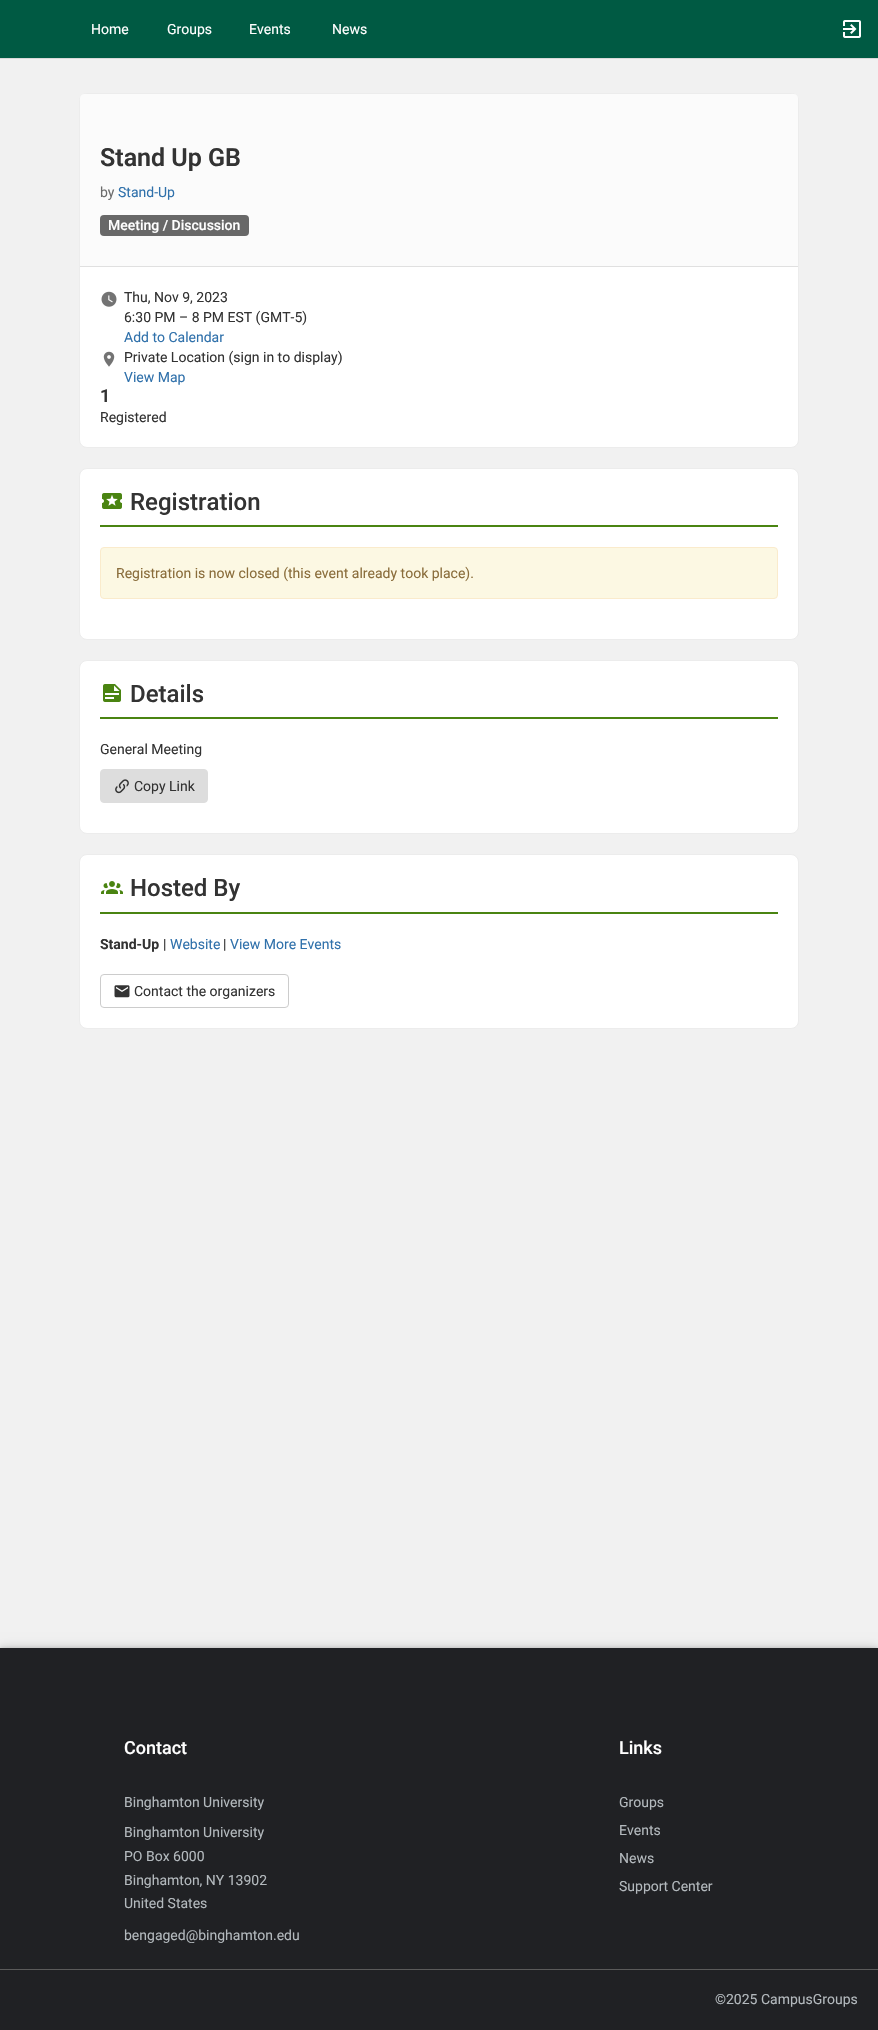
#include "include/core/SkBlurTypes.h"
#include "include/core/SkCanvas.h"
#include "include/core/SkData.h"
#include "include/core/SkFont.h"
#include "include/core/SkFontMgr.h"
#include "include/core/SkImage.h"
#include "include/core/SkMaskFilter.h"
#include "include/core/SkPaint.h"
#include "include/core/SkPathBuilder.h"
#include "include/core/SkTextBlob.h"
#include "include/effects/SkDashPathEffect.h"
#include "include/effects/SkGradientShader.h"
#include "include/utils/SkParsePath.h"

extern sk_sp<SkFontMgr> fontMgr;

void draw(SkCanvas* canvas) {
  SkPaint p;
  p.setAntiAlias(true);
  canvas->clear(SkColorSetRGB(241, 241, 241));
  p.setColor(SkColorSetRGB(0, 90, 67));
  canvas->drawRect(SkRect::MakeLTRB(0, 0, 878, 58), p);
  p.setColor(SkColorSetRGB(217, 217, 217));
  canvas->drawRect(SkRect::MakeLTRB(0, 58, 878, 59), p);
  canvas->drawImageRect(SkImages::DeferredFromEncodedData(SkData::MakeFromFileName("images/1.png")), SkRect::MakeLTRB(843, 20, 861, 38), SkSamplingOptions());
  p.setColor(SK_ColorWHITE);
  canvas->drawRoundRect(SkRect::MakeLTRB(79.5f, 93.5f, 798.5f, 447.5f), 7.5f, 7.5f, p);
  p.setStyle(SkPaint::kStroke_Style);
  p.setStrokeWidth(1);
  p.setColor(SkColorSetRGB(236, 236, 236));
  canvas->drawRoundRect(SkRect::MakeLTRB(79.5f, 93.5f, 798.5f, 447.5f), 7.5f, 7.5f, p);
  p.setStyle(SkPaint::kFill_Style);
  p.setColor(SkColorSetRGB(251, 251, 251));
  canvas->drawPath(SkPathBuilder().moveTo(84, 94).lineTo(794, 94).cubicTo(796, 94, 798, 96, 798, 98).lineTo(798, 266).lineTo(80, 266).lineTo(80, 98).cubicTo(80, 96, 82, 94, 84, 94).close().detach(), p);
  p.setColor(SkColorSetRGB(104, 104, 104));
  canvas->drawRoundRect(SkRect::MakeLTRB(100, 215, 249, 236), 4, 4, p);
  p.setColor(SkColorSetRGB(224, 224, 224));
  canvas->drawRect(SkRect::MakeLTRB(80, 266, 798, 267), p);
  canvas->drawImageRect(SkImages::DeferredFromEncodedData(SkData::MakeFromFileName("images/2.png")), SkRect::MakeLTRB(101, 291, 117, 307), SkSamplingOptions());
  canvas->drawImageRect(SkImages::DeferredFromEncodedData(SkData::MakeFromFileName("images/3.png")), SkRect::MakeLTRB(103, 351, 115, 367), SkSamplingOptions());
  p.setColor(SK_ColorWHITE);
  canvas->drawRoundRect(SkRect::MakeLTRB(79.5f, 468.5f, 798.5f, 639.5f), 7.5f, 7.5f, p);
  p.setStyle(SkPaint::kStroke_Style);
  p.setColor(SkColorSetRGB(236, 236, 236));
  canvas->drawRoundRect(SkRect::MakeLTRB(79.5f, 468.5f, 798.5f, 639.5f), 7.5f, 7.5f, p);
  canvas->drawImageRect(SkImages::DeferredFromEncodedData(SkData::MakeFromFileName("images/4.png")), SkRect::MakeLTRB(102, 493, 122, 509), SkSamplingOptions());
  p.setStyle(SkPaint::kFill_Style);
  p.setColor(SkColorSetRGB(74, 132, 17));
  canvas->drawRect(SkRect::MakeLTRB(100, 525, 778, 527), p);
  p.setColor(SkColorSetRGB(252, 248, 227));
  canvas->drawRoundRect(SkRect::MakeLTRB(100.5f, 547.5f, 777.5f, 598.5f), 3.5f, 3.5f, p);
  p.setStyle(SkPaint::kStroke_Style);
  p.setColor(SkColorSetRGB(250, 235, 204));
  canvas->drawRoundRect(SkRect::MakeLTRB(100.5f, 547.5f, 777.5f, 598.5f), 3.5f, 3.5f, p);
  p.setStyle(SkPaint::kFill_Style);
  p.setColor(SK_ColorWHITE);
  canvas->drawRoundRect(SkRect::MakeLTRB(79.5f, 660.5f, 798.5f, 833.5f), 7.5f, 7.5f, p);
  p.setStyle(SkPaint::kStroke_Style);
  p.setColor(SkColorSetRGB(236, 236, 236));
  canvas->drawRoundRect(SkRect::MakeLTRB(79.5f, 660.5f, 798.5f, 833.5f), 7.5f, 7.5f, p);
  canvas->drawImageRect(SkImages::DeferredFromEncodedData(SkData::MakeFromFileName("images/5.png")), SkRect::MakeLTRB(103, 684, 121, 702), SkSamplingOptions());
  p.setStyle(SkPaint::kFill_Style);
  p.setColor(SkColorSetRGB(74, 132, 17));
  canvas->drawRect(SkRect::MakeLTRB(100, 717, 778, 719), p);
  p.setColor(SkColorSetRGB(221, 221, 221));
  canvas->drawRoundRect(SkRect::MakeLTRB(100.5f, 769.5f, 207.5f, 802.5f), 3.5f, 3.5f, p);
  p.setStyle(SkPaint::kStroke_Style);
  canvas->drawRoundRect(SkRect::MakeLTRB(100.5f, 769.5f, 207.5f, 802.5f), 3.5f, 3.5f, p);
  canvas->drawImageRect(SkImages::DeferredFromEncodedData(SkData::MakeFromFileName("images/6.png")), SkRect::MakeLTRB(115, 779, 129, 794), SkSamplingOptions());
  p.setStyle(SkPaint::kFill_Style);
  p.setColor(SK_ColorWHITE);
  canvas->drawRoundRect(SkRect::MakeLTRB(79.5f, 854.5f, 798.5f, 1028.5f), 7.5f, 7.5f, p);
  p.setStyle(SkPaint::kStroke_Style);
  p.setColor(SkColorSetRGB(236, 236, 236));
  canvas->drawRoundRect(SkRect::MakeLTRB(79.5f, 854.5f, 798.5f, 1028.5f), 7.5f, 7.5f, p);
  canvas->drawImageRect(SkImages::DeferredFromEncodedData(SkData::MakeFromFileName("images/7.png")), SkRect::MakeLTRB(101, 881, 123, 894), SkSamplingOptions());
  p.setStyle(SkPaint::kFill_Style);
  p.setColor(SkColorSetRGB(74, 132, 17));
  canvas->drawRect(SkRect::MakeLTRB(100, 912, 778, 914), p);
  p.setStyle(SkPaint::kStroke_Style);
  p.setColor(SkColorSetRGB(204, 204, 204));
  canvas->drawRoundRect(SkRect::MakeLTRB(100.5f, 974.5f, 288.5f, 1007.5f), 3.5f, 3.5f, p);
  canvas->drawImageRect(SkImages::DeferredFromEncodedData(SkData::MakeFromFileName("images/8.png")), SkRect::MakeLTRB(114, 985, 130, 998), SkSamplingOptions());
  p.setStyle(SkPaint::kFill_Style);
  p.setColor(SkColorSetARGB(36, 0, 0, 0));
  p.setMaskFilter(SkMaskFilter::MakeBlur(kNormal_SkBlurStyle, 5));
  canvas->drawRect(SkRect::MakeLTRB(0, 1647, 878, 2029), p);
  p.setMaskFilter(nullptr);
  p.setColor(SkColorSetARGB(26, 0, 0, 0));
  p.setMaskFilter(SkMaskFilter::MakeBlur(kNormal_SkBlurStyle, 1.5f));
  canvas->drawRect(SkRect::MakeLTRB(0, 1647, 878, 2029), p);
  p.setMaskFilter(nullptr);
  p.setColor(SkColorSetRGB(32, 33, 36));
  canvas->drawRect(SkRect::MakeLTRB(0, 1648, 878, 2030), p);
  p.setColor(SkColorSetRGB(90, 90, 90));
  canvas->drawRect(SkRect::MakeLTRB(0, 1969, 878, 1970), p);
  SkFont font1(fontMgr->matchFamilyStyle("Roboto", SkFontStyle::Normal()), 14);
  font1.setSubpixel(true);
  p.setColor(SK_ColorWHITE);
  canvas->drawString("Home", 91, 34, font1, p);
  canvas->drawString("Groups", 167, 34, font1, p);
  canvas->drawString("Events", 249, 34, font1, p);
  canvas->drawString("News", 332, 34, font1, p);
  SkFont font2(fontMgr->matchFamilyStyle("Roboto", SkFontStyle(600, SkFontStyle::kNormal_Width, SkFontStyle::kUpright_Slant)), 25);
  font2.setSubpixel(true);
  p.setColor(SkColorSetRGB(51, 51, 51));
  canvas->drawString("Stand Up GB", 100, 166, font2, p);
  p.setColor(SkColorSetRGB(108, 108, 108));
  canvas->drawString("by", 100, 197, font1, p);
  p.setColor(SkColorSetRGB(48, 113, 171));
  canvas->drawString("Stand-Up", 118, 197, font1, p);
  SkFont font3(fontMgr->matchFamilyStyle("Roboto", SkFontStyle(500, SkFontStyle::kNormal_Width, SkFontStyle::kUpright_Slant)), 14);
  font3.setSubpixel(true);
  p.setColor(SK_ColorWHITE);
  canvas->drawString("Meeting / Discussion", 108, 230, font3, p);
  p.setColor(SkColorSetRGB(51, 51, 51));
  canvas->drawString("Thu, Nov 9, 2023", 124, 302, font1, p);
  canvas->drawString("6:30 PM – 8 PM EST (GMT-5)", 124, 322, font1, p);
  p.setColor(SkColorSetRGB(48, 113, 171));
  canvas->drawString("Add to Calendar", 124, 342, font1, p);
  p.setColor(SkColorSetRGB(51, 51, 51));
  canvas->drawString("Private Location (sign in to display)", 124, 362, font1, p);
  p.setColor(SkColorSetRGB(48, 113, 171));
  canvas->drawString("View Map", 124, 382, font1, p);
  SkFont font4(fontMgr->matchFamilyStyle("Roboto", SkFontStyle(600, SkFontStyle::kNormal_Width, SkFontStyle::kUpright_Slant)), 18);
  font4.setSubpixel(true);
  p.setColor(SkColorSetRGB(51, 51, 51));
  canvas->drawString("1", 100, 402, font4, p);
  canvas->drawString("Registered", 100, 422, font1, p);
  SkFont font5(fontMgr->matchFamilyStyle("Roboto", SkFontStyle(500, SkFontStyle::kNormal_Width, SkFontStyle::kUpright_Slant)), 24);
  font5.setSubpixel(true);
  canvas->drawString("Registration", 130, 510, font5, p);
  p.setColor(SkColorSetRGB(138, 109, 59));
  canvas->drawString("Registration is now closed (this event already took place).", 116, 578, font1, p);
  p.setColor(SkColorSetRGB(51, 51, 51));
  canvas->drawString("Details", 130, 702, font5, p);
  canvas->drawString("General Meeting", 100, 754, font1, p);
  canvas->drawString("Copy Link", 134, 791, font1, p);
  canvas->drawString("Hosted By", 130, 896, font5, p);
  SkFont font6(fontMgr->matchFamilyStyle("Roboto", SkFontStyle::Bold()), 14);
  font6.setSubpixel(true);
  canvas->drawString("Stand-Up", 100, 949, font6, p);
  canvas->drawString("|", 163, 949, font1, p);
  p.setColor(SkColorSetRGB(48, 113, 171));
  canvas->drawString("Website", 170, 949, font1, p);
  p.setColor(SkColorSetRGB(51, 51, 51));
  canvas->drawString("|", 223, 949, font1, p);
  p.setColor(SkColorSetRGB(48, 113, 171));
  canvas->drawString("View More Events", 230, 949, font1, p);
  p.setColor(SkColorSetRGB(51, 51, 51));
  canvas->drawString("Contact the organizers", 134, 996, font1, p);
  SkFont font7(fontMgr->matchFamilyStyle("Roboto", SkFontStyle(500, SkFontStyle::kNormal_Width, SkFontStyle::kUpright_Slant)), 18);
  font7.setSubpixel(true);
  p.setColor(SK_ColorWHITE);
  canvas->drawString("Contact", 124, 1754, font7, p);
  p.setColor(SkColorSetRGB(179, 185, 189));
  canvas->drawString("Binghamton University", 124, 1807, font1, p);
  canvas->drawString("Binghamton University", 124, 1837, font1, p);
  canvas->drawString("PO Box 6000", 124, 1861, font1, p);
  canvas->drawString("Binghamton, NY 13902", 124, 1885, font1, p);
  canvas->drawString("United States", 124, 1908, font1, p);
  canvas->drawString("bengaged@binghamton.edu", 124, 1940, font1, p);
  p.setColor(SK_ColorWHITE);
  canvas->drawString("Links", 619, 1754, font7, p);
  p.setColor(SkColorSetRGB(179, 185, 189));
  canvas->drawString("Groups", 619, 1807, font1, p);
  canvas->drawString("Events", 619, 1835, font1, p);
  canvas->drawString("News", 619, 1863, font1, p);
  canvas->drawString("Support Center", 619, 1891, font1, p);
  canvas->drawString("©2025 CampusGroups", 715, 2004, font1, p);
}
